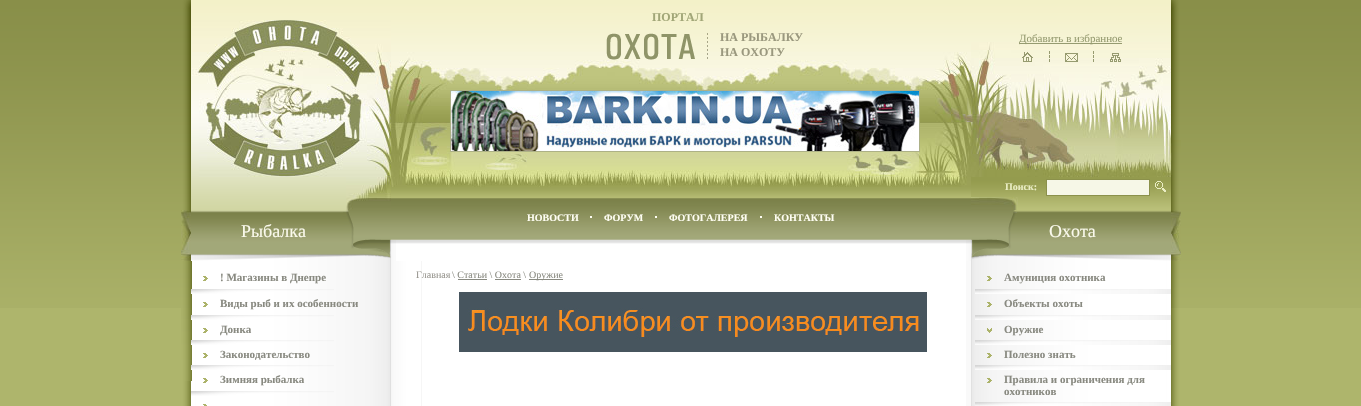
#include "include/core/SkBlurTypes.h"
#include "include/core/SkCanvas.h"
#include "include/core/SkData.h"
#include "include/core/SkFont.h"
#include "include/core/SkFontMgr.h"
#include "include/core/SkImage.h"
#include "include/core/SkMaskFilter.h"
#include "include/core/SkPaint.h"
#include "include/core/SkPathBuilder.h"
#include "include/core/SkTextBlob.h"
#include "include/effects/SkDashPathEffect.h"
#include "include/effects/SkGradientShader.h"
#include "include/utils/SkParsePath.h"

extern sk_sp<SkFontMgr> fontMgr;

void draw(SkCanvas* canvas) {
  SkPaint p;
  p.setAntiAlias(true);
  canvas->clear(SkColorSetRGB(174, 181, 108));
  canvas->drawImageRect(SkImages::DeferredFromEncodedData(SkData::MakeFromFileName("images/1.png")), SkRect::MakeLTRB(0, 0, 1361, 308), SkSamplingOptions());
  p.setColor(SK_ColorWHITE);
  canvas->drawRect(SkRect::MakeLTRB(422, 261, 966, 406), p);
  canvas->drawImageRect(SkImages::DeferredFromEncodedData(SkData::MakeFromFileName("images/2.png")), SkRect::MakeLTRB(191, 0, 1171, 210), SkSamplingOptions());
  canvas->drawImageRect(SkImages::DeferredFromEncodedData(SkData::MakeFromFileName("images/3.png")), SkRect::MakeLTRB(181, 0, 191, 4), SkSamplingOptions());
  canvas->drawImageRect(SkImages::DeferredFromEncodedData(SkData::MakeFromFileName("images/4.png")), SkRect::MakeLTRB(1171, 0, 1181, 4), SkSamplingOptions());
  canvas->drawImageRect(SkImages::DeferredFromEncodedData(SkData::MakeFromFileName("images/5.png")), SkRect::MakeLTRB(181, 4, 191, 90), SkSamplingOptions());
  canvas->drawImageRect(SkImages::DeferredFromEncodedData(SkData::MakeFromFileName("images/6.png")), SkRect::MakeLTRB(192, 20, 391, 90), SkSamplingOptions());
  canvas->drawImageRect(SkImages::DeferredFromEncodedData(SkData::MakeFromFileName("images/7.png")), SkRect::MakeLTRB(391, 52, 971, 90), SkSamplingOptions());
  canvas->drawImageRect(SkImages::DeferredFromEncodedData(SkData::MakeFromFileName("images/8.png")), SkRect::MakeLTRB(606, 33, 708, 60), SkSamplingOptions());
  canvas->drawImageRect(SkImages::DeferredFromEncodedData(SkData::MakeFromFileName("images/9.png")), SkRect::MakeLTRB(971, 42, 1171, 90), SkSamplingOptions());
  p.setColor(SkColorSetRGB(150, 155, 112));
  canvas->drawRect(SkRect::MakeLTRB(1019, 43, 1122, 44), p);
  canvas->drawImageRect(SkImages::DeferredFromEncodedData(SkData::MakeFromFileName("images/10.png")), SkRect::MakeLTRB(1022, 52, 1033, 62), SkSamplingOptions());
  canvas->drawImageRect(SkImages::DeferredFromEncodedData(SkData::MakeFromFileName("images/11.png")), SkRect::MakeLTRB(1049, 51, 1050, 62), SkSamplingOptions());
  canvas->drawImageRect(SkImages::DeferredFromEncodedData(SkData::MakeFromFileName("images/12.png")), SkRect::MakeLTRB(1065, 53, 1078, 62), SkSamplingOptions());
  canvas->drawImageRect(SkImages::DeferredFromEncodedData(SkData::MakeFromFileName("images/11.png")), SkRect::MakeLTRB(1093, 51, 1094, 62), SkSamplingOptions());
  canvas->drawImageRect(SkImages::DeferredFromEncodedData(SkData::MakeFromFileName("images/13.png")), SkRect::MakeLTRB(1110, 53, 1121, 62), SkSamplingOptions());
  canvas->drawImageRect(SkImages::DeferredFromEncodedData(SkData::MakeFromFileName("images/14.png")), SkRect::MakeLTRB(1171, 4, 1181, 90), SkSamplingOptions());
  canvas->drawImageRect(SkImages::DeferredFromEncodedData(SkData::MakeFromFileName("images/15.png")), SkRect::MakeLTRB(181, 90, 191, 177), SkSamplingOptions());
  canvas->drawImageRect(SkImages::DeferredFromEncodedData(SkData::MakeFromFileName("images/16.png")), SkRect::MakeLTRB(199, 90, 391, 177), SkSamplingOptions());
  canvas->drawImageRect(SkImages::DeferredFromEncodedData(SkData::MakeFromFileName("images/17.png")), SkRect::MakeLTRB(391, 90, 971, 177), SkSamplingOptions());
  p.setStyle(SkPaint::kStroke_Style);
  p.setStrokeWidth(1);
  p.setColor(SkColorSetRGB(173, 177, 135));
  canvas->drawRect(SkRect::MakeLTRB(450.5f, 90.5f, 919.5f, 151.5f), p);
  canvas->drawImageRect(SkImages::DeferredFromEncodedData(SkData::MakeFromFileName("images/18.png")), SkRect::MakeLTRB(451, 91, 919, 151), SkSamplingOptions());
  canvas->drawImageRect(SkImages::DeferredFromEncodedData(SkData::MakeFromFileName("images/19.png")), SkRect::MakeLTRB(971, 90, 1171, 177), SkSamplingOptions());
  canvas->drawImageRect(SkImages::DeferredFromEncodedData(SkData::MakeFromFileName("images/20.png")), SkRect::MakeLTRB(1171, 90, 1181, 177), SkSamplingOptions());
  canvas->drawImageRect(SkImages::DeferredFromEncodedData(SkData::MakeFromFileName("images/21.png")), SkRect::MakeLTRB(181, 177, 191, 210), SkSamplingOptions());
  canvas->drawImageRect(SkImages::DeferredFromEncodedData(SkData::MakeFromFileName("images/22.png")), SkRect::MakeLTRB(346, 177, 391, 210), SkSamplingOptions());
  canvas->drawImageRect(SkImages::DeferredFromEncodedData(SkData::MakeFromFileName("images/23.png")), SkRect::MakeLTRB(391, 187, 971, 210), SkSamplingOptions());
  canvas->drawImageRect(SkImages::DeferredFromEncodedData(SkData::MakeFromFileName("images/24.png")), SkRect::MakeLTRB(391, 177, 971, 187), SkSamplingOptions());
  canvas->drawImageRect(SkImages::DeferredFromEncodedData(SkData::MakeFromFileName("images/25.png")), SkRect::MakeLTRB(971, 177, 1171, 210), SkSamplingOptions());
  canvas->drawImageRect(SkImages::DeferredFromEncodedData(SkData::MakeFromFileName("images/26.png")), SkRect::MakeLTRB(971, 197, 1018, 210), SkSamplingOptions());
  p.setStyle(SkPaint::kFill_Style);
  p.setColor(SkColorSetRGB(246, 247, 231));
  canvas->drawRect(SkRect::MakeLTRB(1046.5f, 179.5f, 1149.5f, 195.5f), p);
  p.setStyle(SkPaint::kStroke_Style);
  p.setColor(SkColorSetRGB(139, 145, 75));
  canvas->drawRect(SkRect::MakeLTRB(1046.5f, 179.5f, 1149.5f, 195.5f), p);
  canvas->drawImageRect(SkImages::DeferredFromEncodedData(SkData::MakeFromFileName("images/27.png")), SkRect::MakeLTRB(1155, 181, 1166, 192), SkSamplingOptions());
  canvas->drawImageRect(SkImages::DeferredFromEncodedData(SkData::MakeFromFileName("images/28.png")), SkRect::MakeLTRB(1171, 177, 1181, 210), SkSamplingOptions());
  canvas->drawImageRect(SkImages::DeferredFromEncodedData(SkData::MakeFromFileName("images/29.png")), SkRect::MakeLTRB(181, 210, 191, 261), SkSamplingOptions());
  canvas->drawImageRect(SkImages::DeferredFromEncodedData(SkData::MakeFromFileName("images/30.png")), SkRect::MakeLTRB(391, 210, 971, 261), SkSamplingOptions());
  p.setStyle(SkPaint::kFill_Style);
  p.setColor(SkColorSetRGB(255, 254, 243));
  canvas->drawRect(SkRect::MakeLTRB(590, 216, 592, 218), p);
  canvas->drawRect(SkRect::MakeLTRB(655, 216, 657, 218), p);
  canvas->drawRect(SkRect::MakeLTRB(760, 216, 762, 218), p);
  canvas->drawImageRect(SkImages::DeferredFromEncodedData(SkData::MakeFromFileName("images/31.png")), SkRect::MakeLTRB(966, 240, 971, 261), SkSamplingOptions());
  canvas->drawImageRect(SkImages::DeferredFromEncodedData(SkData::MakeFromFileName("images/32.png")), SkRect::MakeLTRB(391, 240, 396, 261), SkSamplingOptions());
  canvas->drawImageRect(SkImages::DeferredFromEncodedData(SkData::MakeFromFileName("images/33.png")), SkRect::MakeLTRB(1171, 210, 1181, 261), SkSamplingOptions());
  canvas->drawImageRect(SkImages::DeferredFromEncodedData(SkData::MakeFromFileName("images/34.png")), SkRect::MakeLTRB(191, 210, 343, 254), SkSamplingOptions());
  canvas->drawImageRect(SkImages::DeferredFromEncodedData(SkData::MakeFromFileName("images/35.png")), SkRect::MakeLTRB(191, 210, 391, 261), SkSamplingOptions());
  canvas->drawImageRect(SkImages::DeferredFromEncodedData(SkData::MakeFromFileName("images/36.png")), SkRect::MakeLTRB(1017, 210, 1171, 251), SkSamplingOptions());
  canvas->drawImageRect(SkImages::DeferredFromEncodedData(SkData::MakeFromFileName("images/37.png")), SkRect::MakeLTRB(971, 210, 1171, 261), SkSamplingOptions());
  canvas->drawImageRect(SkImages::DeferredFromEncodedData(SkData::MakeFromFileName("images/38.png")), SkRect::MakeLTRB(181, 261, 391, 406), SkSamplingOptions());
  canvas->drawImageRect(SkImages::DeferredFromEncodedData(SkData::MakeFromFileName("images/39.png")), SkRect::MakeLTRB(181, 261, 192, 381), SkSamplingOptions());
  canvas->drawImageRect(SkImages::DeferredFromEncodedData(SkData::MakeFromFileName("images/40.png")), SkRect::MakeLTRB(203, 276, 208, 281), SkSamplingOptions());
  canvas->drawImageRect(SkImages::DeferredFromEncodedData(SkData::MakeFromFileName("images/41.png")), SkRect::MakeLTRB(191, 289, 334, 294), SkSamplingOptions());
  canvas->drawImageRect(SkImages::DeferredFromEncodedData(SkData::MakeFromFileName("images/40.png")), SkRect::MakeLTRB(203, 302, 208, 307), SkSamplingOptions());
  canvas->drawImageRect(SkImages::DeferredFromEncodedData(SkData::MakeFromFileName("images/41.png")), SkRect::MakeLTRB(191, 315, 334, 320), SkSamplingOptions());
  canvas->drawImageRect(SkImages::DeferredFromEncodedData(SkData::MakeFromFileName("images/40.png")), SkRect::MakeLTRB(203, 328, 208, 333), SkSamplingOptions());
  canvas->drawImageRect(SkImages::DeferredFromEncodedData(SkData::MakeFromFileName("images/41.png")), SkRect::MakeLTRB(191, 340, 334, 345), SkSamplingOptions());
  canvas->drawImageRect(SkImages::DeferredFromEncodedData(SkData::MakeFromFileName("images/40.png")), SkRect::MakeLTRB(203, 353, 208, 358), SkSamplingOptions());
  canvas->drawImageRect(SkImages::DeferredFromEncodedData(SkData::MakeFromFileName("images/41.png")), SkRect::MakeLTRB(191, 365, 334, 370), SkSamplingOptions());
  canvas->drawImageRect(SkImages::DeferredFromEncodedData(SkData::MakeFromFileName("images/40.png")), SkRect::MakeLTRB(203, 378, 208, 383), SkSamplingOptions());
  canvas->drawImageRect(SkImages::DeferredFromEncodedData(SkData::MakeFromFileName("images/41.png")), SkRect::MakeLTRB(191, 391, 334, 396), SkSamplingOptions());
  canvas->drawImageRect(SkImages::DeferredFromEncodedData(SkData::MakeFromFileName("images/42.png")), SkRect::MakeLTRB(203, 404, 207, 406), SkSamplingOptions());
  canvas->drawImageRect(SkImages::DeferredFromEncodedData(SkData::MakeFromFileName("images/43.png")), SkRect::MakeLTRB(391, 261, 422, 406), SkSamplingOptions());
  p.setColor(SkColorSetRGB(249, 249, 249));
  canvas->drawRect(SkRect::MakeLTRB(966, 261, 971, 406), p);
  p.setColor(SkColorSetRGB(137, 138, 129));
  canvas->drawRect(SkRect::MakeLTRB(529, 279, 563, 280), p);
  canvas->drawRect(SkRect::MakeLTRB(458, 279, 487, 280), p);
  canvas->drawRect(SkRect::MakeLTRB(495, 279, 521, 280), p);
  canvas->drawImageRect(SkImages::DeferredFromEncodedData(SkData::MakeFromFileName("images/44.png")), SkRect::MakeLTRB(459, 292, 927, 352), SkSamplingOptions());
  canvas->drawImageRect(SkImages::DeferredFromEncodedData(SkData::MakeFromFileName("images/45.png")), SkRect::MakeLTRB(971, 261, 1181, 406), SkSamplingOptions());
  canvas->drawImageRect(SkImages::DeferredFromEncodedData(SkData::MakeFromFileName("images/46.png")), SkRect::MakeLTRB(1171, 261, 1181, 308), SkSamplingOptions());
  canvas->drawImageRect(SkImages::DeferredFromEncodedData(SkData::MakeFromFileName("images/47.png")), SkRect::MakeLTRB(987, 276, 992, 281), SkSamplingOptions());
  canvas->drawImageRect(SkImages::DeferredFromEncodedData(SkData::MakeFromFileName("images/48.png")), SkRect::MakeLTRB(975, 289, 1171, 294), SkSamplingOptions());
  canvas->drawImageRect(SkImages::DeferredFromEncodedData(SkData::MakeFromFileName("images/47.png")), SkRect::MakeLTRB(987, 302, 992, 307), SkSamplingOptions());
  canvas->drawImageRect(SkImages::DeferredFromEncodedData(SkData::MakeFromFileName("images/48.png")), SkRect::MakeLTRB(975, 315, 1171, 320), SkSamplingOptions());
  canvas->drawImageRect(SkImages::DeferredFromEncodedData(SkData::MakeFromFileName("images/49.png")), SkRect::MakeLTRB(987, 328, 992, 333), SkSamplingOptions());
  canvas->drawImageRect(SkImages::DeferredFromEncodedData(SkData::MakeFromFileName("images/48.png")), SkRect::MakeLTRB(975, 340, 1171, 345), SkSamplingOptions());
  canvas->drawImageRect(SkImages::DeferredFromEncodedData(SkData::MakeFromFileName("images/47.png")), SkRect::MakeLTRB(987, 353, 992, 358), SkSamplingOptions());
  canvas->drawImageRect(SkImages::DeferredFromEncodedData(SkData::MakeFromFileName("images/48.png")), SkRect::MakeLTRB(975, 365, 1171, 370), SkSamplingOptions());
  canvas->drawImageRect(SkImages::DeferredFromEncodedData(SkData::MakeFromFileName("images/47.png")), SkRect::MakeLTRB(987, 378, 992, 383), SkSamplingOptions());
  canvas->drawImageRect(SkImages::DeferredFromEncodedData(SkData::MakeFromFileName("images/50.png")), SkRect::MakeLTRB(975, 402, 1171, 406), SkSamplingOptions());
  SkFont font1(fontMgr->matchFamilyStyle("Liberation Serif", SkFontStyle::Bold()), 12);
  font1.setSubpixel(true);
  p.setColor(SkColorSetRGB(161, 166, 119));
  canvas->drawString("ПОРТАЛ", 652, 21, font1, p);
  p.setColor(SkColorSetRGB(154, 152, 126));
  canvas->drawString("НА РЫБАЛКУ", 720, 41, font1, p);
  canvas->drawString("НА ОХОТУ", 720, 56, font1, p);
  SkFont font2(fontMgr->matchFamilyStyle("Liberation Serif", SkFontStyle::Normal()), 11);
  font2.setSubpixel(true);
  p.setColor(SkColorSetRGB(150, 155, 112));
  canvas->drawString("Добавить в избранное", 1019, 42, font2, p);
  SkFont font3(fontMgr->matchFamilyStyle("Liberation Serif", SkFontStyle::Bold()), 10);
  font3.setSubpixel(true);
  p.setColor(SkColorSetRGB(234, 237, 196));
  canvas->drawString("Поиск:", 1005, 190, font3, p);
  p.setColor(SkColorSetRGB(255, 254, 243));
  canvas->drawString("НОВОСТИ", 527, 221, font3, p);
  canvas->drawString("ФОРУМ", 604, 221, font3, p);
  canvas->drawString("ФОТОГАЛЕРЕЯ", 669, 221, font3, p);
  canvas->drawString("КОНТАКТЫ", 774, 221, font3, p);
  SkFont font4(fontMgr->matchFamilyStyle("Liberation Serif", SkFontStyle::Normal()), 18);
  font4.setSubpixel(true);
  p.setColor(SkColorSetRGB(251, 250, 237));
  canvas->drawString("Рыбалка", 241, 237, font4, p);
  canvas->drawString("Охота", 1049, 237, font4, p);
  SkFont font5(fontMgr->matchFamilyStyle("Liberation Serif", SkFontStyle::Bold()), 11);
  font5.setSubpixel(true);
  p.setColor(SkColorSetRGB(137, 138, 129));
  canvas->drawString("! Магазины в Днепре", 220, 281, font5, p);
  canvas->drawString("Виды рыб и их особенности", 220, 307, font5, p);
  canvas->drawString("Донка", 220, 333, font5, p);
  canvas->drawString("Законодательство", 220, 358, font5, p);
  canvas->drawString("Зимняя рыбалка", 220, 383, font5, p);
  SkFont font6(fontMgr->matchFamilyStyle("Liberation Serif", SkFontStyle::Normal()), 10);
  font6.setSubpixel(true);
  p.setColor(SkColorSetRGB(150, 148, 141));
  canvas->drawString("Главная", 416, 278, font6, p);
  p.setColor(SkColorSetRGB(137, 138, 129));
  canvas->drawString("\\ Статьи \\ Охота \\", 452, 278, font6, p);
  canvas->drawString("Оружие", 529, 278, font6, p);
  canvas->drawString("Амуниция охотника", 1004, 281, font5, p);
  canvas->drawString("Объекты охоты", 1004, 307, font5, p);
  canvas->drawString("Оружие", 1004, 333, font5, p);
  canvas->drawString("Полезно знать", 1004, 358, font5, p);
  canvas->drawString("Правила и ограничения для", 1004, 383, font5, p);
  canvas->drawString("охотников", 1004, 395, font5, p);
}
